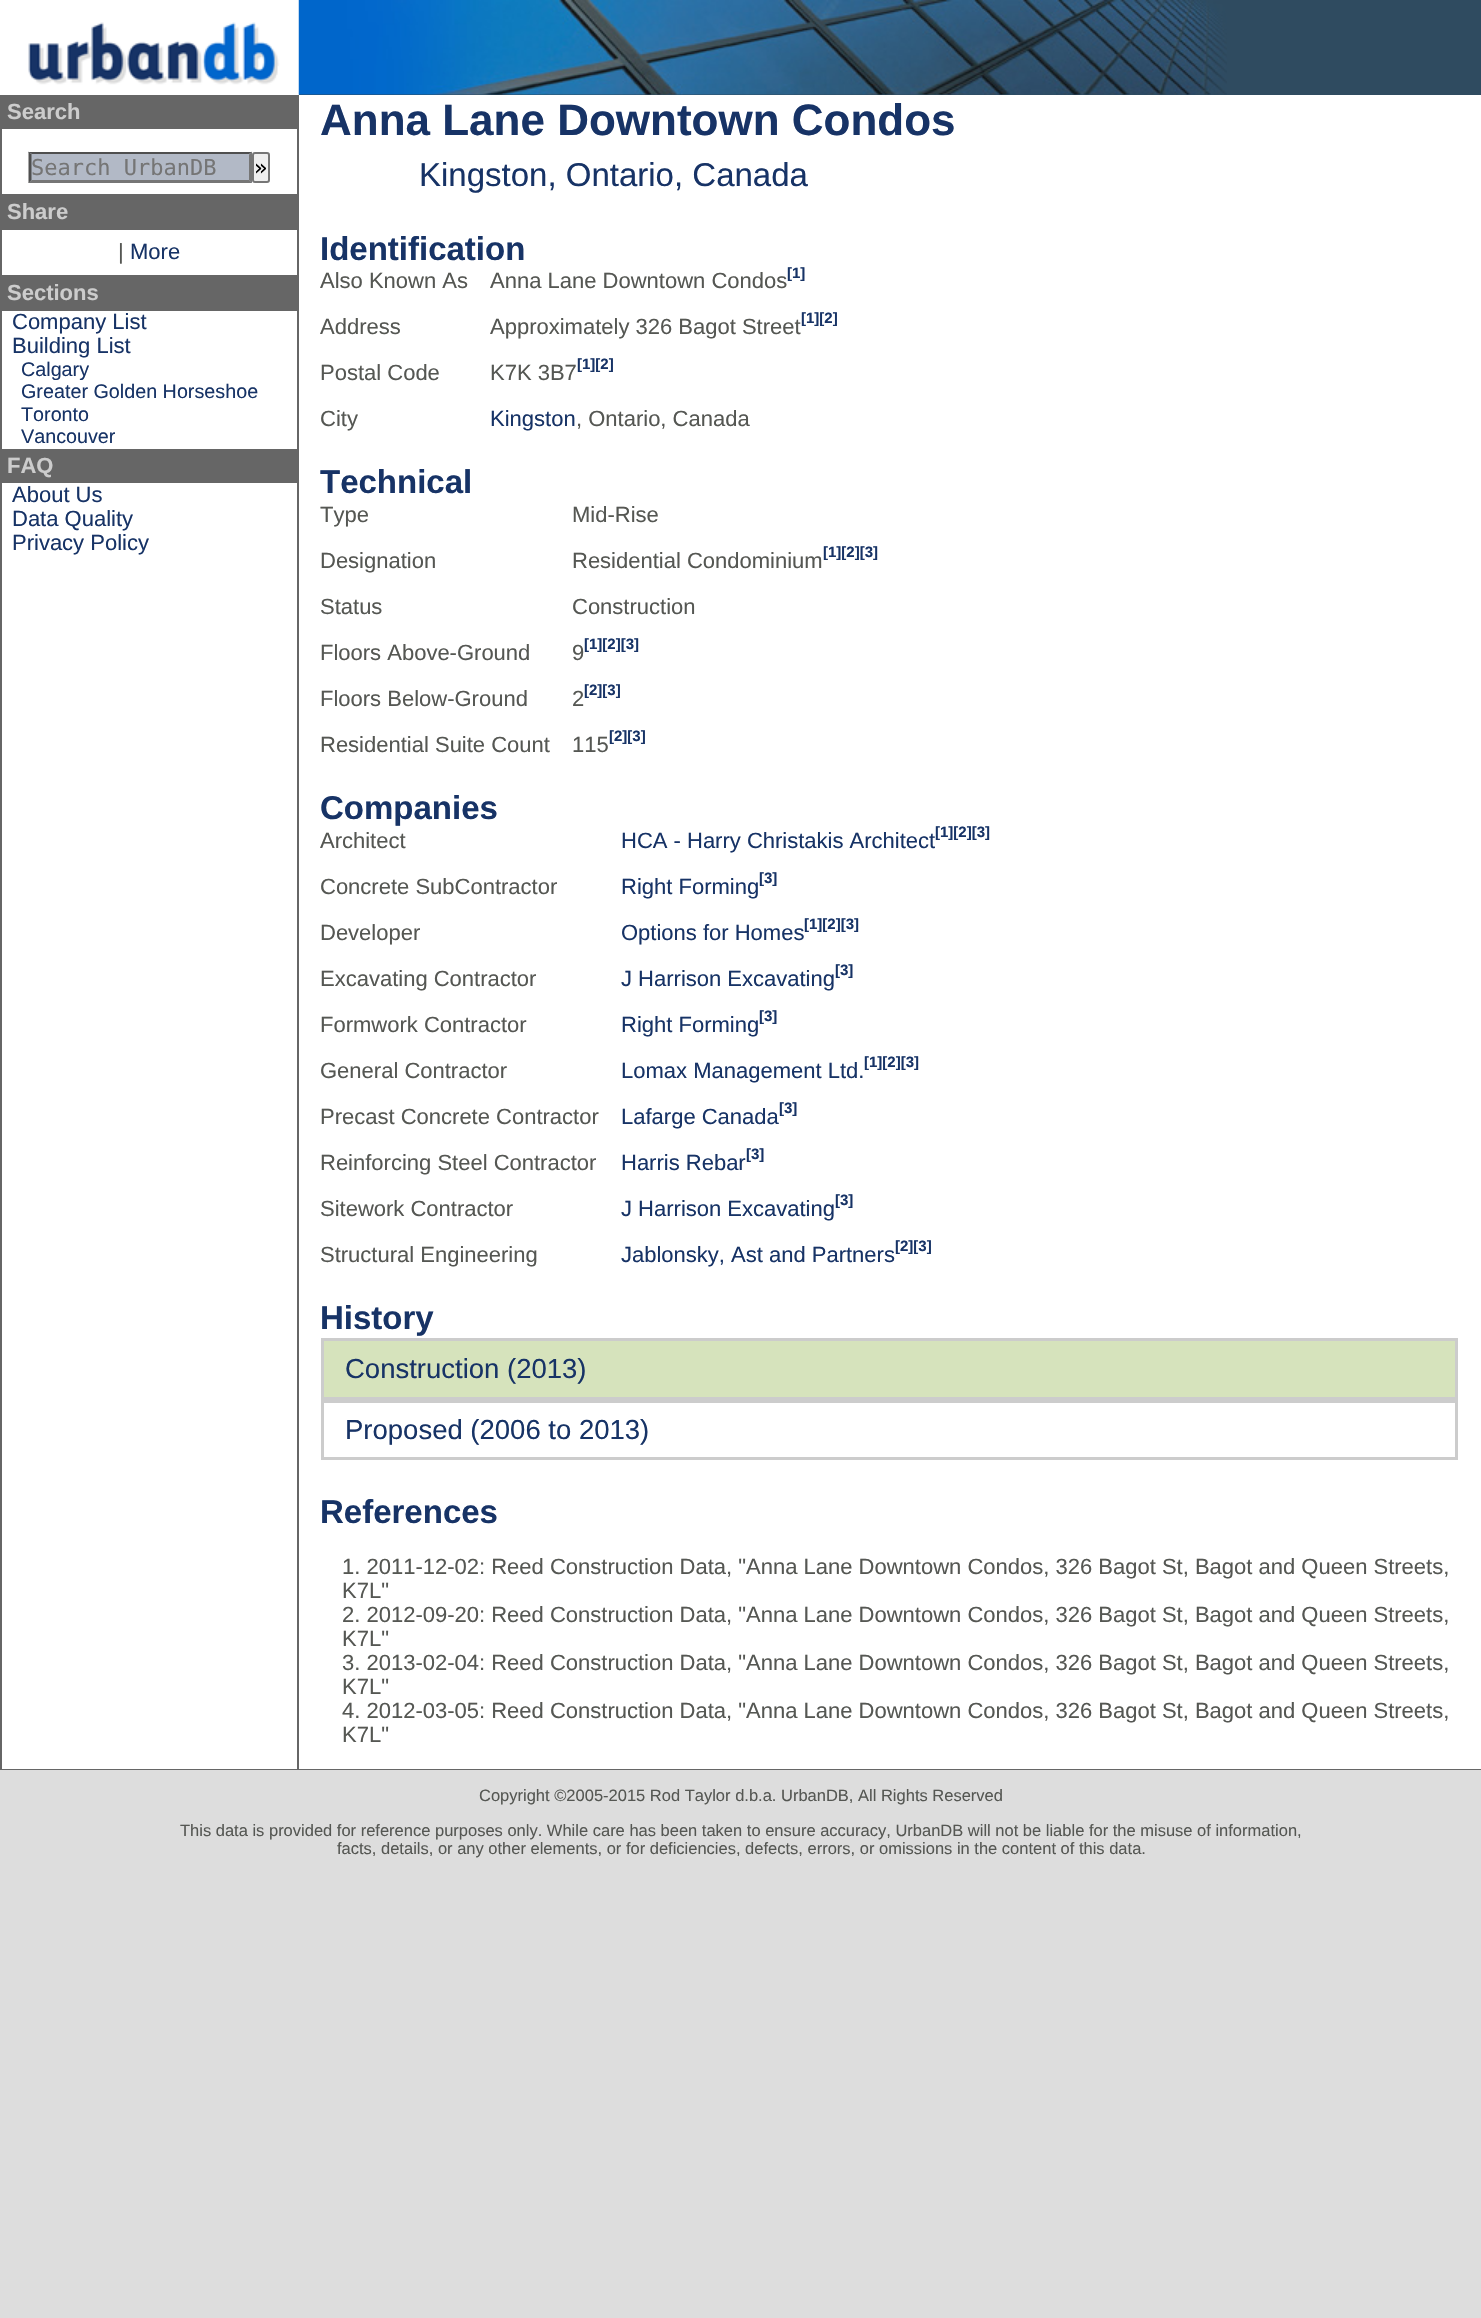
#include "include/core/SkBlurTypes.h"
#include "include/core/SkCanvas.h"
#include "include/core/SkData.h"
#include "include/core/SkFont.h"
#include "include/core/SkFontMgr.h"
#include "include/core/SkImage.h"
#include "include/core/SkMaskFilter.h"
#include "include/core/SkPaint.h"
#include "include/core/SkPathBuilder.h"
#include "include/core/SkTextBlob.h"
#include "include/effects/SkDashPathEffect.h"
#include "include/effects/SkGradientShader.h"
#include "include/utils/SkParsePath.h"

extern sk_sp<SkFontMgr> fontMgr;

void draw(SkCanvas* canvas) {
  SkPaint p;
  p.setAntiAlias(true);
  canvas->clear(SkColorSetRGB(221, 221, 221));
  p.setColor(SK_ColorWHITE);
  canvas->drawRect(SkRect::MakeLTRB(0, 0, 299, 95), p);
  p.setColor(SkColorSetRGB(47, 75, 96));
  canvas->drawRect(SkRect::MakeLTRB(299, 0, 1481, 95), p);
  canvas->drawImageRect(SkImages::DeferredFromEncodedData(SkData::MakeFromFileName("images/2.png")), SkRect::MakeLTRB(298, 0, 1227, 95), SkSamplingOptions());
  canvas->drawImageRect(SkImages::DeferredFromEncodedData(SkData::MakeFromFileName("images/1.png")), SkRect::MakeLTRB(28, 0, 299, 95), SkSamplingOptions());
  p.setColor(SK_ColorWHITE);
  canvas->drawRect(SkRect::MakeLTRB(2, 129, 297, 1769), p);
  p.setColor(SkColorSetRGB(102, 102, 102));
  canvas->drawRect(SkRect::MakeLTRB(297, 95, 299, 1770), p);
  canvas->drawRect(SkRect::MakeLTRB(0, 1769, 1481, 1770), p);
  canvas->drawRect(SkRect::MakeLTRB(0, 95, 2, 1770), p);
  canvas->drawRect(SkRect::MakeLTRB(2, 95, 297, 129), p);
  p.setColor(SkColorSetRGB(178, 185, 198));
  canvas->drawRect(SkRect::MakeLTRB(29, 152, 252, 183), p);
  p.setColor(SkColorSetRGB(79, 79, 79));
  canvas->drawPath(SkPathBuilder().moveTo(28, 152).lineTo(252, 152).lineTo(249, 154).lineTo(32, 154).close().detach(), p);
  p.setColor(SkColorSetRGB(118, 118, 118));
  canvas->drawPath(SkPathBuilder().moveTo(252, 151.5f).lineTo(252, 183).lineTo(249, 180).lineTo(249, 154.5f).close().detach(), p);
  canvas->drawPath(SkPathBuilder().moveTo(252, 183).lineTo(28, 183).lineTo(32, 180).lineTo(249, 180).close().detach(), p);
  p.setColor(SkColorSetRGB(79, 79, 79));
  canvas->drawPath(SkPathBuilder().moveTo(28.5f, 183).lineTo(28.5f, 151.5f).lineTo(31.5f, 154.5f).lineTo(31.5f, 180).close().detach(), p);
  p.setColor(SkColorSetRGB(239, 239, 239));
  canvas->drawRoundRect(SkRect::MakeLTRB(253, 153, 269, 182), 2, 2, p);
  p.setStyle(SkPaint::kStroke_Style);
  p.setStrokeWidth(2);
  p.setColor(SkColorSetRGB(118, 118, 118));
  canvas->drawRoundRect(SkRect::MakeLTRB(253, 153, 269, 182), 2, 2, p);
  p.setStyle(SkPaint::kFill_Style);
  p.setColor(SkColorSetRGB(102, 102, 102));
  canvas->drawRect(SkRect::MakeLTRB(2, 194, 297, 230), p);
  canvas->drawRect(SkRect::MakeLTRB(2, 275, 297, 311), p);
  canvas->drawRect(SkRect::MakeLTRB(2, 449, 297, 483), p);
  p.setColor(SK_ColorWHITE);
  canvas->drawRect(SkRect::MakeLTRB(299, 95, 1481, 1769), p);
  p.setColor(SkColorSetRGB(214, 227, 188));
  canvas->drawRect(SkRect::MakeLTRB(322.5f, 1339.5f, 1456.5f, 1398.5f), p);
  p.setStyle(SkPaint::kStroke_Style);
  p.setStrokeWidth(3);
  p.setColor(SkColorSetRGB(204, 204, 204));
  canvas->drawRect(SkRect::MakeLTRB(322.5f, 1339.5f, 1456.5f, 1398.5f), p);
  canvas->drawRect(SkRect::MakeLTRB(322.5f, 1401.5f, 1456.5f, 1458.5f), p);
  SkFont font1(fontMgr->matchFamilyStyle("Liberation Sans", SkFontStyle::Bold()), 22);
  font1.setSubpixel(true);
  p.setStyle(SkPaint::kFill_Style);
  canvas->drawString("Search", 7, 119, font1, p);
  SkFont font2(fontMgr->matchFamilyStyle("DejaVu Sans Mono", SkFontStyle::Normal()), 22);
  font2.setSubpixel(true);
  p.setColor(SkColorSetRGB(117, 117, 117));
  canvas->drawString("Search UrbanDB", 31, 175, font2, p);
  p.setColor(SK_ColorBLACK);
  canvas->drawString("»", 254, 175, font2, p);
  p.setColor(SkColorSetRGB(204, 204, 204));
  canvas->drawString("Share", 7, 219, font1, p);
  SkFont font3(fontMgr->matchFamilyStyle("Liberation Sans", SkFontStyle::Normal()), 22);
  font3.setSubpixel(true);
  p.setColor(SkColorSetRGB(85, 87, 83));
  canvas->drawString("|", 118, 259, font3, p);
  p.setColor(SkColorSetRGB(23, 51, 102));
  canvas->drawString("More", 130, 259, font3, p);
  p.setColor(SkColorSetRGB(204, 204, 204));
  canvas->drawString("Sections", 7, 300, font1, p);
  p.setColor(SkColorSetRGB(23, 51, 102));
  canvas->drawString("Company List", 12, 329, font3, p);
  canvas->drawString("Building List", 12, 353, font3, p);
  SkFont font4(fontMgr->matchFamilyStyle("Liberation Sans", SkFontStyle::Normal()), 19.75f);
  font4.setSubpixel(true);
  canvas->drawString("Calgary", 21, 376, font4, p);
  canvas->drawString("Greater Golden Horseshoe", 21, 398, font4, p);
  canvas->drawString("Toronto", 21, 421, font4, p);
  canvas->drawString("Vancouver", 21, 443, font4, p);
  p.setColor(SkColorSetRGB(204, 204, 204));
  canvas->drawString("FAQ", 7, 473, font1, p);
  p.setColor(SkColorSetRGB(23, 51, 102));
  canvas->drawString("About Us", 12, 502, font3, p);
  canvas->drawString("Data Quality", 12, 526, font3, p);
  canvas->drawString("Privacy Policy", 12, 550, font3, p);
  SkFont font5(fontMgr->matchFamilyStyle("Liberation Sans", SkFontStyle::Bold()), 44);
  font5.setSubpixel(true);
  canvas->drawString("Anna Lane Downtown Condos", 320, 135, font5, p);
  SkFont font6(fontMgr->matchFamilyStyle("Liberation Sans", SkFontStyle::Normal()), 33);
  font6.setSubpixel(true);
  canvas->drawString("Kingston, Ontario, Canada", 419, 186, font6, p);
  SkFont font7(fontMgr->matchFamilyStyle("Liberation Sans", SkFontStyle::Bold()), 33);
  font7.setSubpixel(true);
  canvas->drawString("Identification", 320, 260, font7, p);
  p.setColor(SkColorSetRGB(85, 87, 83));
  canvas->drawString("Also Known As", 320, 288, font3, p);
  canvas->drawString("Anna Lane Downtown Condos", 490, 288, font3, p);
  SkFont font8(fontMgr->matchFamilyStyle("Liberation Sans", SkFontStyle::Bold()), 15);
  font8.setSubpixel(true);
  p.setColor(SkColorSetRGB(23, 51, 102));
  canvas->drawString("[1]", 787, 278, font8, p);
  p.setColor(SkColorSetRGB(85, 87, 83));
  canvas->drawString("Address", 320, 334, font3, p);
  canvas->drawString("Approximately 326 Bagot Street", 490, 334, font3, p);
  p.setColor(SkColorSetRGB(23, 51, 102));
  canvas->drawString("[1][2]", 801, 323, font8, p);
  p.setColor(SkColorSetRGB(85, 87, 83));
  canvas->drawString("Postal Code", 320, 380, font3, p);
  canvas->drawString("K7K 3B7", 490, 380, font3, p);
  p.setColor(SkColorSetRGB(23, 51, 102));
  canvas->drawString("[1][2]", 577, 369, font8, p);
  p.setColor(SkColorSetRGB(85, 87, 83));
  canvas->drawString("City", 320, 426, font3, p);
  p.setColor(SkColorSetRGB(23, 51, 102));
  canvas->drawString("Kingston", 490, 426, font3, p);
  p.setColor(SkColorSetRGB(85, 87, 83));
  canvas->drawString(", Ontario, Canada", 576, 426, font3, p);
  p.setColor(SkColorSetRGB(23, 51, 102));
  canvas->drawString("Technical", 320, 493, font7, p);
  p.setColor(SkColorSetRGB(85, 87, 83));
  canvas->drawString("Type", 320, 522, font3, p);
  canvas->drawString("Mid-Rise", 572, 522, font3, p);
  canvas->drawString("Designation", 320, 568, font3, p);
  canvas->drawString("Residential Condominium", 572, 568, font3, p);
  p.setColor(SkColorSetRGB(23, 51, 102));
  canvas->drawString("[1][2][3]", 823, 557, font8, p);
  p.setColor(SkColorSetRGB(85, 87, 83));
  canvas->drawString("Status", 320, 614, font3, p);
  canvas->drawString("Construction", 572, 614, font3, p);
  canvas->drawString("Floors Above-Ground", 320, 660, font3, p);
  canvas->drawString("9", 572, 660, font3, p);
  p.setColor(SkColorSetRGB(23, 51, 102));
  canvas->drawString("[1][2][3]", 584, 649, font8, p);
  p.setColor(SkColorSetRGB(85, 87, 83));
  canvas->drawString("Floors Below-Ground", 320, 706, font3, p);
  canvas->drawString("2", 572, 706, font3, p);
  p.setColor(SkColorSetRGB(23, 51, 102));
  canvas->drawString("[2][3]", 584, 695, font8, p);
  p.setColor(SkColorSetRGB(85, 87, 83));
  canvas->drawString("Residential Suite Count", 320, 752, font3, p);
  canvas->drawString("115", 572, 752, font3, p);
  p.setColor(SkColorSetRGB(23, 51, 102));
  canvas->drawString("[2][3]", 609, 741, font8, p);
  canvas->drawString("Companies", 320, 819, font7, p);
  p.setColor(SkColorSetRGB(85, 87, 83));
  canvas->drawString("Architect", 320, 848, font3, p);
  p.setColor(SkColorSetRGB(23, 51, 102));
  canvas->drawString("HCA - Harry Christakis Architect", 621, 848, font3, p);
  canvas->drawString("[1][2][3]", 935, 837, font8, p);
  p.setColor(SkColorSetRGB(85, 87, 83));
  canvas->drawString("Concrete SubContractor", 320, 894, font3, p);
  p.setColor(SkColorSetRGB(23, 51, 102));
  canvas->drawString("Right Forming", 621, 894, font3, p);
  canvas->drawString("[3]", 759, 883, font8, p);
  p.setColor(SkColorSetRGB(85, 87, 83));
  canvas->drawString("Developer", 320, 940, font3, p);
  p.setColor(SkColorSetRGB(23, 51, 102));
  canvas->drawString("Options for Homes", 621, 940, font3, p);
  canvas->drawString("[1][2][3]", 804, 929, font8, p);
  p.setColor(SkColorSetRGB(85, 87, 83));
  canvas->drawString("Excavating Contractor", 320, 986, font3, p);
  p.setColor(SkColorSetRGB(23, 51, 102));
  canvas->drawString("J Harrison Excavating", 621, 986, font3, p);
  canvas->drawString("[3]", 835, 975, font8, p);
  p.setColor(SkColorSetRGB(85, 87, 83));
  canvas->drawString("Formwork Contractor", 320, 1032, font3, p);
  p.setColor(SkColorSetRGB(23, 51, 102));
  canvas->drawString("Right Forming", 621, 1032, font3, p);
  canvas->drawString("[3]", 759, 1021, font8, p);
  p.setColor(SkColorSetRGB(85, 87, 83));
  canvas->drawString("General Contractor", 320, 1078, font3, p);
  p.setColor(SkColorSetRGB(23, 51, 102));
  canvas->drawString("Lomax Management Ltd.", 621, 1078, font3, p);
  canvas->drawString("[1][2][3]", 864, 1067, font8, p);
  p.setColor(SkColorSetRGB(85, 87, 83));
  canvas->drawString("Precast Concrete Contractor", 320, 1124, font3, p);
  p.setColor(SkColorSetRGB(23, 51, 102));
  canvas->drawString("Lafarge Canada", 621, 1124, font3, p);
  canvas->drawString("[3]", 779, 1113, font8, p);
  p.setColor(SkColorSetRGB(85, 87, 83));
  canvas->drawString("Reinforcing Steel Contractor", 320, 1170, font3, p);
  p.setColor(SkColorSetRGB(23, 51, 102));
  canvas->drawString("Harris Rebar", 621, 1170, font3, p);
  canvas->drawString("[3]", 746, 1159, font8, p);
  p.setColor(SkColorSetRGB(85, 87, 83));
  canvas->drawString("Sitework Contractor", 320, 1216, font3, p);
  p.setColor(SkColorSetRGB(23, 51, 102));
  canvas->drawString("J Harrison Excavating", 621, 1216, font3, p);
  canvas->drawString("[3]", 835, 1205, font8, p);
  p.setColor(SkColorSetRGB(85, 87, 83));
  canvas->drawString("Structural Engineering", 320, 1262, font3, p);
  p.setColor(SkColorSetRGB(23, 51, 102));
  canvas->drawString("Jablonsky, Ast and Partners", 621, 1262, font3, p);
  canvas->drawString("[2][3]", 895, 1251, font8, p);
  canvas->drawString("History", 320, 1329, font7, p);
  SkFont font9(fontMgr->matchFamilyStyle("Liberation Sans", SkFontStyle::Normal()), 27.5f);
  font9.setSubpixel(true);
  canvas->drawString("Construction (2013)", 345, 1378, font9, p);
  canvas->drawString("Proposed (2006 to 2013)", 345, 1439, font9, p);
  canvas->drawString("References", 320, 1523, font7, p);
  p.setColor(SkColorSetRGB(85, 87, 83));
  canvas->drawString("1. 2011-12-02: Reed Construction Data, \"Anna Lane Downtown Condos, 326 Bagot St, Bagot and Queen Streets,", 342, 1574, font3, p);
  canvas->drawString("K7L\"", 342, 1598, font3, p);
  canvas->drawString("2. 2012-09-20: Reed Construction Data, \"Anna Lane Downtown Condos, 326 Bagot St, Bagot and Queen Streets,", 342, 1622, font3, p);
  canvas->drawString("K7L\"", 342, 1646, font3, p);
  canvas->drawString("3. 2013-02-04: Reed Construction Data, \"Anna Lane Downtown Condos, 326 Bagot St, Bagot and Queen Streets,", 342, 1670, font3, p);
  canvas->drawString("K7L\"", 342, 1694, font3, p);
  canvas->drawString("4. 2012-03-05: Reed Construction Data, \"Anna Lane Downtown Condos, 326 Bagot St, Bagot and Queen Streets,", 342, 1718, font3, p);
  canvas->drawString("K7L\"", 342, 1742, font3, p);
  SkFont font10(fontMgr->matchFamilyStyle("Liberation Sans", SkFontStyle::Normal()), 16.5f);
  font10.setSubpixel(true);
  canvas->drawString("Copyright ©2005-2015 Rod Taylor d.b.a. UrbanDB, All Rights Reserved", 479, 1801, font10, p);
  canvas->drawString("This data is provided for reference purposes only. While care has been taken to ensure accuracy, UrbanDB will not be liable for the misuse of information,", 180, 1836, font10, p);
  canvas->drawString("facts, details, or any other elements, or for deficiencies, defects, errors, or omissions in the content of this data.", 337, 1854, font10, p);
}
